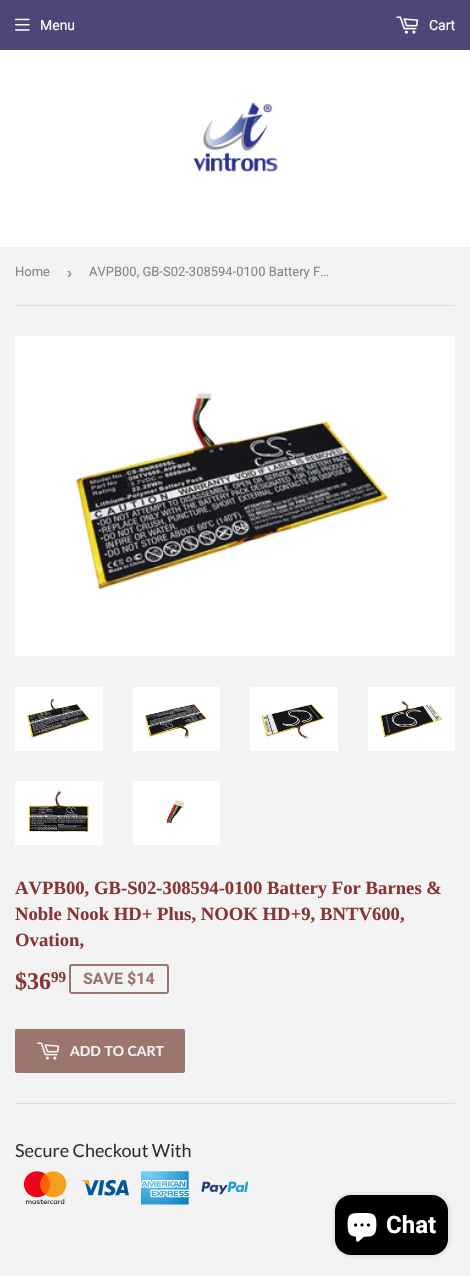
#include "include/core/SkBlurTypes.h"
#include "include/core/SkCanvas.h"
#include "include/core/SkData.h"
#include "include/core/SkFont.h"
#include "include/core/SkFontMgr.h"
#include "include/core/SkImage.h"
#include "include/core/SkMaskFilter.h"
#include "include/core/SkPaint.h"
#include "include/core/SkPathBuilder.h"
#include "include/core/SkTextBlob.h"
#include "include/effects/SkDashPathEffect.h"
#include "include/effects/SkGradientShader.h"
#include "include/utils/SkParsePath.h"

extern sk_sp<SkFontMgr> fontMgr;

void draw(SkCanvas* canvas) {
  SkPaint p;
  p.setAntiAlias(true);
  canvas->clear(SkColorSetRGB(243, 243, 243));
  p.setColor(SkColorSetRGB(77, 71, 121));
  canvas->drawRect(SkRect::MakeLTRB(0, 0, 470, 50), p);
  canvas->drawImageRect(SkImages::DeferredFromEncodedData(SkData::MakeFromFileName("images/1.png")), SkRect::MakeLTRB(15, 18, 30, 31), SkSamplingOptions());
  canvas->drawImageRect(SkImages::DeferredFromEncodedData(SkData::MakeFromFileName("images/2.png")), SkRect::MakeLTRB(396, 16, 419, 34), SkSamplingOptions());
  p.setColor(SK_ColorWHITE);
  canvas->drawRect(SkRect::MakeLTRB(0, 50, 470, 247), p);
  canvas->drawImageRect(SkImages::DeferredFromEncodedData(SkData::MakeFromFileName("images/3.png")), SkRect::MakeLTRB(193, 102, 278, 172), SkSamplingOptions());
  p.setColor(SkColorSetRGB(222, 222, 222));
  canvas->drawRect(SkRect::MakeLTRB(15, 305, 455, 306), p);
  canvas->drawImageRect(SkImages::DeferredFromEncodedData(SkData::MakeFromFileName("images/4.png")), SkRect::MakeLTRB(15, 336, 455, 656), SkSamplingOptions());
  canvas->drawImageRect(SkImages::DeferredFromEncodedData(SkData::MakeFromFileName("images/5.png")), SkRect::MakeLTRB(15, 687, 103, 751), SkSamplingOptions());
  canvas->drawImageRect(SkImages::DeferredFromEncodedData(SkData::MakeFromFileName("images/6.png")), SkRect::MakeLTRB(133, 687, 220, 751), SkSamplingOptions());
  canvas->drawImageRect(SkImages::DeferredFromEncodedData(SkData::MakeFromFileName("images/7.png")), SkRect::MakeLTRB(250, 687, 338, 751), SkSamplingOptions());
  canvas->drawImageRect(SkImages::DeferredFromEncodedData(SkData::MakeFromFileName("images/8.png")), SkRect::MakeLTRB(368, 687, 455, 751), SkSamplingOptions());
  canvas->drawImageRect(SkImages::DeferredFromEncodedData(SkData::MakeFromFileName("images/9.png")), SkRect::MakeLTRB(15, 781, 103, 845), SkSamplingOptions());
  canvas->drawImageRect(SkImages::DeferredFromEncodedData(SkData::MakeFromFileName("images/10.png")), SkRect::MakeLTRB(133, 781, 220, 845), SkSamplingOptions());
  p.setStyle(SkPaint::kStroke_Style);
  p.setStrokeWidth(2);
  p.setColor(SkColorSetRGB(156, 117, 111));
  canvas->drawRoundRect(SkRect::MakeLTRB(70, 965, 168, 993), 2, 2, p);
  p.setStyle(SkPaint::kFill_Style);
  canvas->drawRoundRect(SkRect::MakeLTRB(15, 1029, 185, 1073), 2, 2, p);
  canvas->drawImageRect(SkImages::DeferredFromEncodedData(SkData::MakeFromFileName("images/11.png")), SkRect::MakeLTRB(37, 1042, 60, 1060), SkSamplingOptions());
  p.setColor(SkColorSetRGB(222, 222, 222));
  canvas->drawRect(SkRect::MakeLTRB(15, 1103, 455, 1104), p);
  canvas->drawImageRect(SkImages::DeferredFromEncodedData(SkData::MakeFromFileName("images/12.png")), SkRect::MakeLTRB(15, 1143, 249, 1205), SkSamplingOptions());
  p.setColor(SkColorSetARGB(38, 0, 0, 0));
  p.setMaskFilter(SkMaskFilter::MakeBlur(kNormal_SkBlurStyle, 2.5f));
  canvas->drawRoundRect(SkRect::MakeLTRB(335, 1195, 448, 1255), 16, 16, p);
  p.setMaskFilter(nullptr);
  p.setColor(SK_ColorBLACK);
  canvas->drawRoundRect(SkRect::MakeLTRB(335, 1195, 448, 1255), 16, 16, p);
  canvas->drawImageRect(SkImages::DeferredFromEncodedData(SkData::MakeFromFileName("images/13.png")), SkRect::MakeLTRB(347, 1213, 377, 1242), SkSamplingOptions());
  SkFont font1(fontMgr->matchFamilyStyle("Roboto", SkFontStyle::Normal()), 14);
  font1.setSubpixel(true);
  p.setColor(SK_ColorWHITE);
  canvas->drawString("Menu", 40, 30, font1, p);
  canvas->drawString("Cart", 429, 30, font1, p);
  SkFont font2(fontMgr->matchFamilyStyle("Roboto", SkFontStyle::Normal()), 13);
  font2.setSubpixel(true);
  p.setColor(SkColorSetRGB(133, 133, 133));
  canvas->drawString("Home", 15, 276, font2, p);
  SkFont font3(fontMgr->matchFamilyStyle("Liberation Sans", SkFontStyle::Normal()), 15);
  font3.setSubpixel(true);
  p.setColor(SkColorSetRGB(118, 118, 118));
  canvas->drawString("›", 67, 278, font3, p);
  p.setColor(SkColorSetRGB(133, 133, 133));
  canvas->drawString("AVPB00, GB-S02-308594-0100 Battery F…", 89, 276, font2, p);
  SkFont font4(fontMgr->matchFamilyStyle("Liberation Serif", SkFontStyle::Bold()), 18.7f);
  font4.setSubpixel(true);
  p.setColor(SkColorSetRGB(135, 54, 54));
  canvas->drawString("AVPB00, GB-S02-308594-0100 Battery For Barnes &", 15, 894, font4, p);
  canvas->drawString("Noble Nook HD+ Plus, NOOK HD+9, BNTV600,", 15, 920, font4, p);
  canvas->drawString("Ovation,", 15, 946, font4, p);
  SkFont font5(fontMgr->matchFamilyStyle("Liberation Serif", SkFontStyle::Bold()), 24);
  font5.setSubpixel(true);
  canvas->drawString("$36", 15, 989, font5, p);
  SkFont font6(fontMgr->matchFamilyStyle("Liberation Serif", SkFontStyle::Bold()), 15);
  font6.setSubpixel(true);
  canvas->drawString("99", 51, 982, font6, p);
  SkFont font7(fontMgr->matchFamilyStyle("Roboto", SkFontStyle::Bold()), 16);
  font7.setSubpixel(true);
  p.setColor(SkColorSetRGB(156, 117, 111));
  canvas->drawString("SAVE $14", 83, 984, font7, p);
  SkFont font8(fontMgr->matchFamilyStyle("Lato", SkFontStyle::Bold()), 14);
  font8.setSubpixel(true);
  p.setColor(SkColorSetRGB(243, 243, 243));
  canvas->drawString("ADD TO CART", 70, 1056, font8, p);
  SkFont font9(fontMgr->matchFamilyStyle("Roboto", SkFontStyle::Bold()), 24);
  font9.setSubpixel(true);
  p.setColor(SK_ColorWHITE);
  canvas->drawString("Chat", 386, 1233, font9, p);
}
